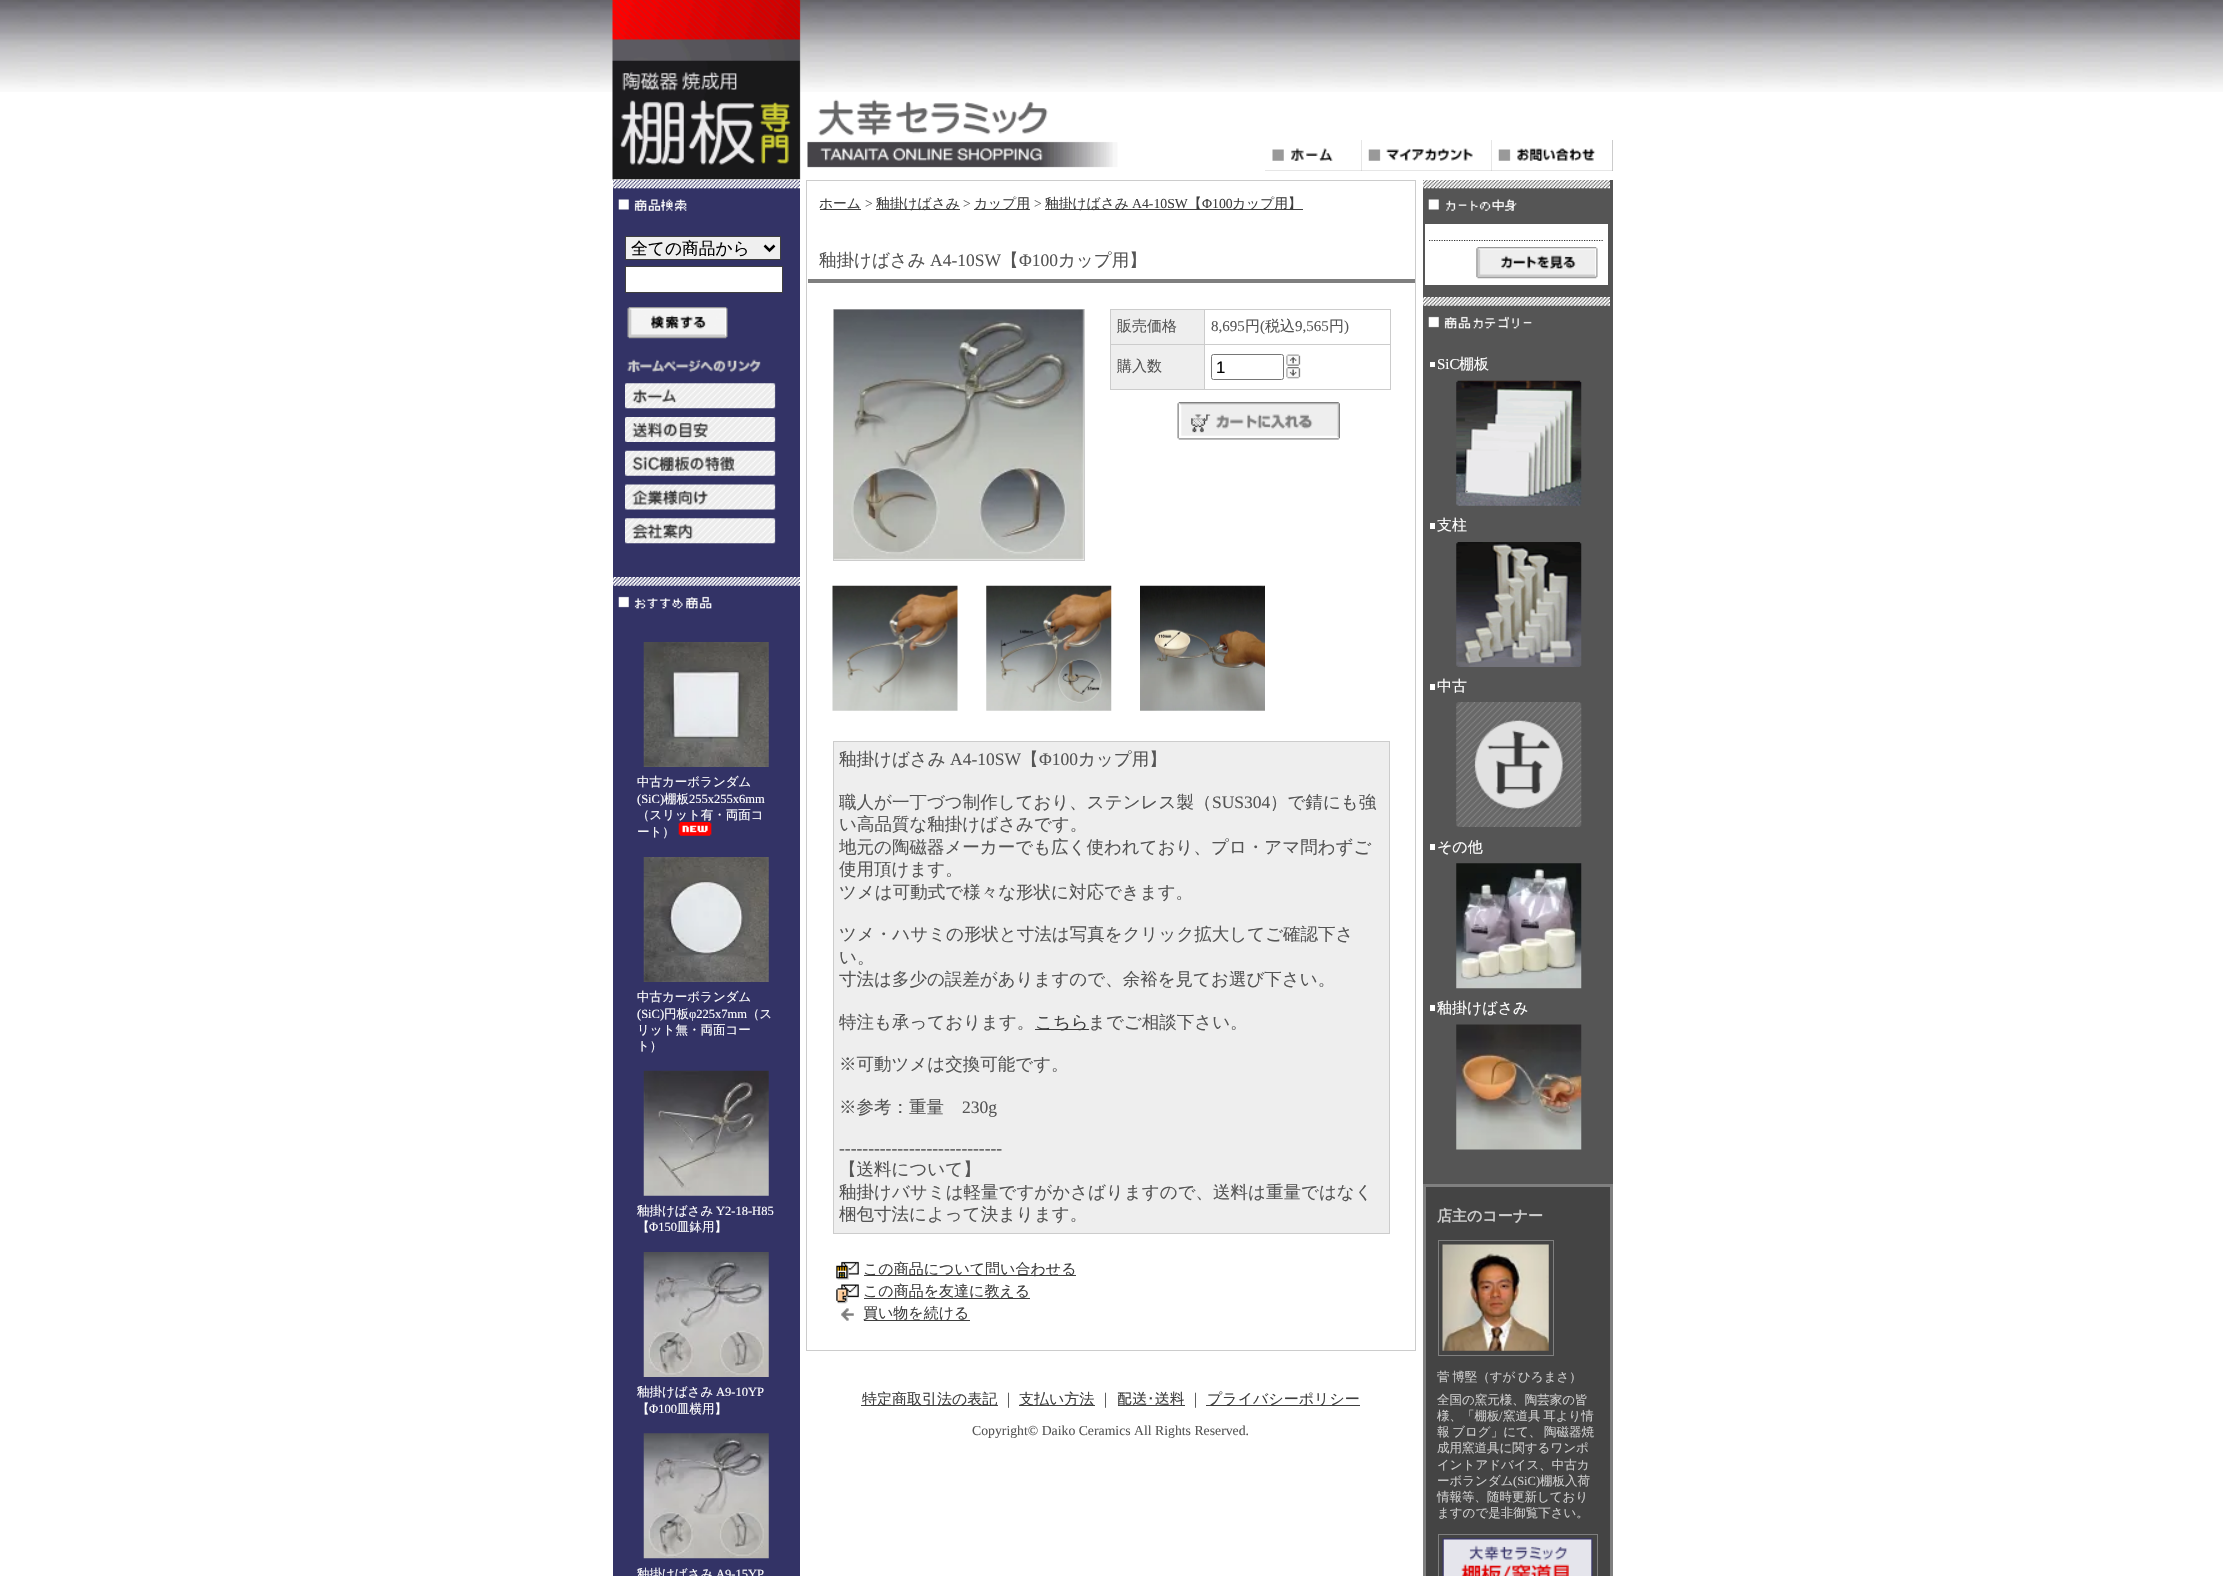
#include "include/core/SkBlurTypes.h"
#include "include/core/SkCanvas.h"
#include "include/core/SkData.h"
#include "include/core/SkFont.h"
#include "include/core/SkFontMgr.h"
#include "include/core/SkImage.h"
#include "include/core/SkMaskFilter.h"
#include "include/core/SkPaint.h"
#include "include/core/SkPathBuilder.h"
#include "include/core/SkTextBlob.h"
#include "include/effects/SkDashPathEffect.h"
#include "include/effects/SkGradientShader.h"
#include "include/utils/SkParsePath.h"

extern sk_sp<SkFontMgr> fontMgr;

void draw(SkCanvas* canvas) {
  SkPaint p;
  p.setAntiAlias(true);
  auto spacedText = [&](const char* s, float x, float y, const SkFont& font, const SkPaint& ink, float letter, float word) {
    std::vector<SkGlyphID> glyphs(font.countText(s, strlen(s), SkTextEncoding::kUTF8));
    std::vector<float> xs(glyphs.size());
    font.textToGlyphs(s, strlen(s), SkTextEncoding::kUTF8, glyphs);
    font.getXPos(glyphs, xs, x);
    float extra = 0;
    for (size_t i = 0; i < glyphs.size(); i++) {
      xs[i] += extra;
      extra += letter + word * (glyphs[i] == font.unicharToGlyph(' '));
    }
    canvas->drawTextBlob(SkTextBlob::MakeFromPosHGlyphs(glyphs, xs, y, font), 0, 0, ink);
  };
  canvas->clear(SK_ColorWHITE);
  canvas->drawImageRect(SkImages::DeferredFromEncodedData(SkData::MakeFromFileName("images/1.png")), SkRect::MakeLTRB(0, 0, 2223, 92), SkSamplingOptions());
  canvas->drawImageRect(SkImages::DeferredFromEncodedData(SkData::MakeFromFileName("images/2.png")), SkRect::MakeLTRB(612, 0, 1118, 180), SkSamplingOptions());
  p.setColor(SkColorSetRGB(153, 153, 153));
  canvas->drawRect(SkRect::MakeLTRB(1265, 149, 1361, 171), p);
  canvas->drawImageRect(SkImages::DeferredFromEncodedData(SkData::MakeFromFileName("images/3.png")), SkRect::MakeLTRB(1265, 140, 1361, 171), SkSamplingOptions());
  canvas->drawRect(SkRect::MakeLTRB(1361, 140, 1613, 171), p);
  canvas->drawImageRect(SkImages::DeferredFromEncodedData(SkData::MakeFromFileName("images/4.png")), SkRect::MakeLTRB(1361, 140, 1491, 171), SkSamplingOptions());
  canvas->drawImageRect(SkImages::DeferredFromEncodedData(SkData::MakeFromFileName("images/5.png")), SkRect::MakeLTRB(1491, 140, 1613, 171), SkSamplingOptions());
  p.setColor(SkColorSetRGB(51, 51, 102));
  canvas->drawRect(SkRect::MakeLTRB(613, 180, 800, 1576), p);
  canvas->drawImageRect(SkImages::DeferredFromEncodedData(SkData::MakeFromFileName("images/6.png")), SkRect::MakeLTRB(613, 179, 800, 211), SkSamplingOptions());
  p.setColor(SkColorSetRGB(239, 239, 239));
  canvas->drawRect(SkRect::MakeLTRB(625.5f, 236.5f, 780.5f, 259.5f), p);
  p.setStyle(SkPaint::kStroke_Style);
  p.setStrokeWidth(1);
  p.setColor(SkColorSetRGB(63, 63, 63));
  canvas->drawRect(SkRect::MakeLTRB(625.5f, 236.5f, 780.5f, 259.5f), p);
  p.setStrokeWidth(2.5f);
  p.setColor(SK_ColorBLACK);
  canvas->drawPath(SkPathBuilder().moveTo(764.5f, 245.5f).lineTo(769.5f, 250.5f).lineTo(774.5f, 245.5f).detach(), p);
  p.setStyle(SkPaint::kFill_Style);
  p.setColor(SK_ColorWHITE);
  canvas->drawRect(SkRect::MakeLTRB(625.5f, 266.5f, 782.5f, 292.5f), p);
  p.setStyle(SkPaint::kStroke_Style);
  p.setStrokeWidth(1);
  p.setColor(SkColorSetRGB(63, 63, 63));
  canvas->drawRect(SkRect::MakeLTRB(625.5f, 266.5f, 782.5f, 292.5f), p);
  canvas->drawImageRect(SkImages::DeferredFromEncodedData(SkData::MakeFromFileName("images/7.png")), SkRect::MakeLTRB(627, 307, 728, 339), SkSamplingOptions());
  canvas->drawImageRect(SkImages::DeferredFromEncodedData(SkData::MakeFromFileName("images/8.png")), SkRect::MakeLTRB(627, 359, 761, 373), SkSamplingOptions());
  canvas->drawImageRect(SkImages::DeferredFromEncodedData(SkData::MakeFromFileName("images/9.png")), SkRect::MakeLTRB(625, 383, 776, 409), SkSamplingOptions());
  canvas->drawImageRect(SkImages::DeferredFromEncodedData(SkData::MakeFromFileName("images/10.png")), SkRect::MakeLTRB(625, 417, 776, 442), SkSamplingOptions());
  canvas->drawImageRect(SkImages::DeferredFromEncodedData(SkData::MakeFromFileName("images/11.png")), SkRect::MakeLTRB(625, 450, 776, 476), SkSamplingOptions());
  canvas->drawImageRect(SkImages::DeferredFromEncodedData(SkData::MakeFromFileName("images/12.png")), SkRect::MakeLTRB(625, 484, 776, 510), SkSamplingOptions());
  canvas->drawImageRect(SkImages::DeferredFromEncodedData(SkData::MakeFromFileName("images/13.png")), SkRect::MakeLTRB(625, 518, 776, 544), SkSamplingOptions());
  canvas->drawImageRect(SkImages::DeferredFromEncodedData(SkData::MakeFromFileName("images/14.png")), SkRect::MakeLTRB(613, 577, 800, 609), SkSamplingOptions());
  canvas->drawImageRect(SkImages::DeferredFromEncodedData(SkData::MakeFromFileName("images/15.png")), SkRect::MakeLTRB(643, 642, 769, 767), SkSamplingOptions());
  canvas->drawImageRect(SkImages::DeferredFromEncodedData(SkData::MakeFromFileName("images/16.png")), SkRect::MakeLTRB(678, 822, 712, 836), SkSamplingOptions());
  canvas->drawImageRect(SkImages::DeferredFromEncodedData(SkData::MakeFromFileName("images/17.png")), SkRect::MakeLTRB(643, 857, 769, 982), SkSamplingOptions());
  canvas->drawImageRect(SkImages::DeferredFromEncodedData(SkData::MakeFromFileName("images/18.png")), SkRect::MakeLTRB(643, 1070, 769, 1196), SkSamplingOptions());
  canvas->drawImageRect(SkImages::DeferredFromEncodedData(SkData::MakeFromFileName("images/19.png")), SkRect::MakeLTRB(643, 1252, 769, 1377), SkSamplingOptions());
  canvas->drawImageRect(SkImages::DeferredFromEncodedData(SkData::MakeFromFileName("images/20.png")), SkRect::MakeLTRB(643, 1433, 769, 1559), SkSamplingOptions());
  p.setColor(SkColorSetRGB(204, 204, 204));
  canvas->drawRect(SkRect::MakeLTRB(806.5f, 180.5f, 1415.5f, 1350.5f), p);
  p.setStyle(SkPaint::kFill_Style);
  p.setColor(SkColorSetRGB(63, 63, 63));
  canvas->drawRect(SkRect::MakeLTRB(820, 209, 861, 210), p);
  canvas->drawRect(SkRect::MakeLTRB(876, 209, 960, 210), p);
  canvas->drawRect(SkRect::MakeLTRB(974, 209, 1030, 210), p);
  canvas->drawRect(SkRect::MakeLTRB(1045, 209, 1303, 210), p);
  p.setColor(SkColorSetRGB(127, 127, 127));
  canvas->drawRect(SkRect::MakeLTRB(808, 279, 1415, 283), p);
  p.setStyle(SkPaint::kStroke_Style);
  p.setColor(SkColorSetRGB(204, 204, 204));
  canvas->drawRect(SkRect::MakeLTRB(833.5f, 309.5f, 1084.5f, 560.5f), p);
  canvas->drawImageRect(SkImages::DeferredFromEncodedData(SkData::MakeFromFileName("images/21.png")), SkRect::MakeLTRB(833, 309, 1084, 560), SkSamplingOptions());
  p.setStyle(SkPaint::kFill_Style);
  canvas->drawRect(SkRect::MakeLTRB(1110, 309, 1391, 390), p);
  p.setColor(SkColorSetRGB(238, 238, 238));
  canvas->drawRect(SkRect::MakeLTRB(1111, 310, 1204, 344), p);
  p.setColor(SK_ColorWHITE);
  canvas->drawRect(SkRect::MakeLTRB(1205, 310, 1390, 344), p);
  p.setColor(SkColorSetRGB(238, 238, 238));
  canvas->drawRect(SkRect::MakeLTRB(1111, 345, 1204, 389), p);
  p.setColor(SK_ColorWHITE);
  canvas->drawRect(SkRect::MakeLTRB(1205, 345, 1390, 389), p);
  p.setStyle(SkPaint::kStroke_Style);
  p.setColor(SkColorSetRGB(118, 118, 118));
  canvas->drawRoundRect(SkRect::MakeLTRB(1211.5f, 354.5f, 1283.5f, 379.5f), 2, 2, p);
  canvas->drawImageRect(SkImages::DeferredFromEncodedData(SkData::MakeFromFileName("images/22.png")), SkRect::MakeLTRB(1286, 354, 1301, 366), SkSamplingOptions());
  canvas->drawImageRect(SkImages::DeferredFromEncodedData(SkData::MakeFromFileName("images/23.png")), SkRect::MakeLTRB(1286, 367, 1301, 379), SkSamplingOptions());
  canvas->drawImageRect(SkImages::DeferredFromEncodedData(SkData::MakeFromFileName("images/24.png")), SkRect::MakeLTRB(1177, 402, 1340, 440), SkSamplingOptions());
  canvas->drawImageRect(SkImages::DeferredFromEncodedData(SkData::MakeFromFileName("images/25.png")), SkRect::MakeLTRB(832, 585, 958, 711), SkSamplingOptions());
  canvas->drawImageRect(SkImages::DeferredFromEncodedData(SkData::MakeFromFileName("images/26.png")), SkRect::MakeLTRB(986, 585, 1112, 711), SkSamplingOptions());
  canvas->drawImageRect(SkImages::DeferredFromEncodedData(SkData::MakeFromFileName("images/27.png")), SkRect::MakeLTRB(1140, 585, 1265, 711), SkSamplingOptions());
  p.setStyle(SkPaint::kFill_Style);
  p.setColor(SkColorSetRGB(238, 238, 238));
  canvas->drawRect(SkRect::MakeLTRB(833.5f, 741.5f, 1389.5f, 1233.5f), p);
  p.setStyle(SkPaint::kStroke_Style);
  p.setColor(SkColorSetRGB(204, 204, 204));
  canvas->drawRect(SkRect::MakeLTRB(833.5f, 741.5f, 1389.5f, 1233.5f), p);
  p.setStyle(SkPaint::kFill_Style);
  p.setColor(SkColorSetRGB(63, 63, 63));
  canvas->drawRect(SkRect::MakeLTRB(1035, 1029, 1089, 1030), p);
  canvas->drawImageRect(SkImages::DeferredFromEncodedData(SkData::MakeFromFileName("images/28.png")), SkRect::MakeLTRB(836, 1261, 859, 1280), SkSamplingOptions());
  canvas->drawRect(SkRect::MakeLTRB(864, 1275, 1076, 1276), p);
  canvas->drawImageRect(SkImages::DeferredFromEncodedData(SkData::MakeFromFileName("images/29.png")), SkRect::MakeLTRB(836, 1284, 859, 1304), SkSamplingOptions());
  canvas->drawRect(SkRect::MakeLTRB(864, 1298, 1030, 1299), p);
  canvas->drawImageRect(SkImages::DeferredFromEncodedData(SkData::MakeFromFileName("images/30.png")), SkRect::MakeLTRB(841, 1308, 854, 1321), SkSamplingOptions());
  canvas->drawRect(SkRect::MakeLTRB(864, 1320, 970, 1321), p);
  canvas->drawRect(SkRect::MakeLTRB(861, 1405, 998, 1406), p);
  canvas->drawRect(SkRect::MakeLTRB(1019, 1405, 1095, 1406), p);
  canvas->drawRect(SkRect::MakeLTRB(1118, 1405, 1185, 1406), p);
  canvas->drawRect(SkRect::MakeLTRB(1206, 1405, 1360, 1406), p);
  p.setColor(SkColorSetRGB(85, 85, 85));
  canvas->drawRect(SkRect::MakeLTRB(1423, 180, 1613, 1184), p);
  canvas->drawImageRect(SkImages::DeferredFromEncodedData(SkData::MakeFromFileName("images/31.png")), SkRect::MakeLTRB(1423, 180, 1610, 211), SkSamplingOptions());
  p.setColor(SK_ColorWHITE);
  canvas->drawRect(SkRect::MakeLTRB(1425, 224, 1608, 285), p);
  p.setStyle(SkPaint::kStroke_Style);
  p.setStrokeWidth(1.2f);
  p.setColor(SkColorSetRGB(51, 51, 51));
  p.setPathEffect(SkDashPathEffect::Make({{1.25f, 1.25f}}, 0));
  canvas->drawPath(SkPathBuilder().moveTo(1429, 240.5f).lineTo(1604, 240.5f).detach(), p);
  p.setPathEffect(nullptr);
  canvas->drawImageRect(SkImages::DeferredFromEncodedData(SkData::MakeFromFileName("images/32.png")), SkRect::MakeLTRB(1476, 247, 1598, 279), SkSamplingOptions());
  canvas->drawImageRect(SkImages::DeferredFromEncodedData(SkData::MakeFromFileName("images/33.png")), SkRect::MakeLTRB(1423, 297, 1610, 329), SkSamplingOptions());
  p.setStyle(SkPaint::kFill_Style);
  p.setColor(SK_ColorWHITE);
  canvas->drawRect(SkRect::MakeLTRB(1430, 362, 1435, 367), p);
  canvas->drawImageRect(SkImages::DeferredFromEncodedData(SkData::MakeFromFileName("images/34.png")), SkRect::MakeLTRB(1456, 380, 1582, 506), SkSamplingOptions());
  canvas->drawRect(SkRect::MakeLTRB(1430, 523, 1435, 529), p);
  canvas->drawImageRect(SkImages::DeferredFromEncodedData(SkData::MakeFromFileName("images/35.png")), SkRect::MakeLTRB(1456, 542, 1582, 667), SkSamplingOptions());
  canvas->drawRect(SkRect::MakeLTRB(1430, 684, 1435, 690), p);
  canvas->drawImageRect(SkImages::DeferredFromEncodedData(SkData::MakeFromFileName("images/36.png")), SkRect::MakeLTRB(1456, 702, 1582, 827), SkSamplingOptions());
  canvas->drawRect(SkRect::MakeLTRB(1430, 844, 1435, 850), p);
  canvas->drawImageRect(SkImages::DeferredFromEncodedData(SkData::MakeFromFileName("images/37.png")), SkRect::MakeLTRB(1456, 863, 1582, 989), SkSamplingOptions());
  canvas->drawRect(SkRect::MakeLTRB(1430, 1005, 1435, 1011), p);
  canvas->drawImageRect(SkImages::DeferredFromEncodedData(SkData::MakeFromFileName("images/38.png")), SkRect::MakeLTRB(1456, 1024, 1582, 1150), SkSamplingOptions());
  p.setColor(SkColorSetRGB(68, 68, 68));
  canvas->drawRect(SkRect::MakeLTRB(1424.5f, 1185.5f, 1611.5f, 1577.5f), p);
  p.setStyle(SkPaint::kStroke_Style);
  p.setStrokeWidth(3);
  p.setColor(SkColorSetRGB(127, 127, 127));
  canvas->drawRect(SkRect::MakeLTRB(1424.5f, 1185.5f, 1611.5f, 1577.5f), p);
  p.setStrokeWidth(1);
  canvas->drawRect(SkRect::MakeLTRB(1438.5f, 1240.5f, 1553.5f, 1355.5f), p);
  canvas->drawImageRect(SkImages::DeferredFromEncodedData(SkData::MakeFromFileName("images/39.png")), SkRect::MakeLTRB(1442, 1244, 1549, 1351), SkSamplingOptions());
  canvas->drawRect(SkRect::MakeLTRB(1438.5f, 1534.5f, 1597.5f, 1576.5f), p);
  canvas->drawImageRect(SkImages::DeferredFromEncodedData(SkData::MakeFromFileName("images/40.png")), SkRect::MakeLTRB(1442, 1538, 1593, 1576), SkSamplingOptions());
  SkFont font1(fontMgr->matchFamilyStyle("WenQuanYi Zen Hei", SkFontStyle(500, SkFontStyle::kNormal_Width, SkFontStyle::kUpright_Slant)), 16.75f);
  font1.setSubpixel(true);
  p.setStyle(SkPaint::kFill_Style);
  p.setColor(SK_ColorBLACK);
  canvas->drawString("全ての商品から", 631, 254, font1, p);
  SkFont font2(fontMgr->matchFamilyStyle("WenQuanYi Zen Hei", SkFontStyle(500, SkFontStyle::kNormal_Width, SkFontStyle::kUpright_Slant)), 12.5f);
  font2.setSubpixel(true);
  p.setColor(SK_ColorWHITE);
  canvas->drawString("中古カーボランダム", 637, 786, font2, p);
  SkFont font3(fontMgr->matchFamilyStyle("Liberation Serif", SkFontStyle::Normal()), 12.5f);
  font3.setSubpixel(true);
  canvas->drawString("(SiC)", 637, 803, font3, p);
  canvas->drawString("棚板", 664, 803, font2, p);
  canvas->drawString("255x255x6mm", 689, 803, font3, p);
  canvas->drawString("（スリット有・両面コ", 637, 819, font2, p);
  canvas->drawString("ート）", 637, 836, font2, p);
  canvas->drawString("中古カーボランダム", 637, 1001, font2, p);
  canvas->drawString("(SiC)", 637, 1018, font3, p);
  canvas->drawString("円板", 664, 1018, font2, p);
  canvas->drawString("φ225x7mm", 689, 1018, font3, p);
  canvas->drawString("（ス", 747, 1018, font2, p);
  canvas->drawString("リット無・両面コー", 637, 1034, font2, p);
  canvas->drawString("ト）", 637, 1050, font2, p);
  canvas->drawString("釉掛けばさみ", 637, 1215, font2, p);
  canvas->drawString("Y2-18-H85", 716, 1215, font3, p);
  canvas->drawString("【", 637, 1231, font2, p);
  canvas->drawString("Φ150", 649, 1231, font3, p);
  canvas->drawString("皿鉢用】", 677, 1231, font2, p);
  canvas->drawString("釉掛けばさみ", 637, 1396, font2, p);
  canvas->drawString("A9-10YP", 716, 1396, font3, p);
  canvas->drawString("【", 637, 1413, font2, p);
  canvas->drawString("Φ100", 649, 1413, font3, p);
  canvas->drawString("皿横用】", 677, 1413, font2, p);
  canvas->drawString("釉掛けばさみ", 637, 1578, font2, p);
  canvas->drawString("A9-15YP", 716, 1578, font3, p);
  SkFont font4(fontMgr->matchFamilyStyle("WenQuanYi Zen Hei", SkFontStyle(500, SkFontStyle::kNormal_Width, SkFontStyle::kUpright_Slant)), 13.75f);
  font4.setSubpixel(true);
  p.setColor(SkColorSetRGB(63, 63, 63));
  canvas->drawString("ホーム", 819, 208, font4, p);
  SkFont font5(fontMgr->matchFamilyStyle("Liberation Serif", SkFontStyle::Normal()), 13.75f);
  font5.setSubpixel(true);
  p.setColor(SkColorSetRGB(85, 85, 85));
  canvas->drawString(">", 865, 208, font5, p);
  p.setColor(SkColorSetRGB(63, 63, 63));
  canvas->drawString("釉掛けばさみ", 876, 208, font4, p);
  p.setColor(SkColorSetRGB(85, 85, 85));
  canvas->drawString(">", 963, 208, font5, p);
  p.setColor(SkColorSetRGB(63, 63, 63));
  canvas->drawString("カップ用", 974, 208, font4, p);
  p.setColor(SkColorSetRGB(85, 85, 85));
  canvas->drawString(">", 1034, 208, font5, p);
  p.setColor(SkColorSetRGB(63, 63, 63));
  canvas->drawString("釉掛けばさみ", 1045, 208, font4, p);
  canvas->drawString("A4-10SW", 1132, 208, font5, p);
  canvas->drawString("【", 1188, 208, font4, p);
  canvas->drawString("Φ100", 1202, 208, font5, p);
  canvas->drawString("カップ用】", 1232, 208, font4, p);
  SkFont font6(fontMgr->matchFamilyStyle("WenQuanYi Zen Hei", SkFontStyle(500, SkFontStyle::kNormal_Width, SkFontStyle::kUpright_Slant)), 17.5f);
  font6.setSubpixel(true);
  p.setColor(SkColorSetRGB(85, 85, 85));
  canvas->drawString("釉掛けばさみ", 819, 266, font6, p);
  SkFont font7(fontMgr->matchFamilyStyle("Liberation Serif", SkFontStyle::Normal()), 17.5f);
  font7.setSubpixel(true);
  canvas->drawString("A4-10SW", 930, 266, font7, p);
  canvas->drawString("【", 1001, 266, font6, p);
  canvas->drawString("Φ100", 1019, 266, font7, p);
  canvas->drawString("カップ用】", 1058, 266, font6, p);
  SkFont font8(fontMgr->matchFamilyStyle("WenQuanYi Zen Hei", SkFontStyle(500, SkFontStyle::kNormal_Width, SkFontStyle::kUpright_Slant)), 15);
  font8.setSubpixel(true);
  canvas->drawString("販売価格", 1117, 331, font8, p);
  SkFont font9(fontMgr->matchFamilyStyle("Liberation Serif", SkFontStyle::Normal()), 15);
  font9.setSubpixel(true);
  canvas->drawString("8,695", 1211, 331, font9, p);
  canvas->drawString("円", 1245, 331, font8, p);
  canvas->drawString("(", 1260, 331, font9, p);
  canvas->drawString("税込", 1265, 331, font8, p);
  canvas->drawString("9,565", 1295, 331, font9, p);
  canvas->drawString("円", 1329, 331, font8, p);
  canvas->drawString(")", 1344, 331, font9, p);
  canvas->drawString("購入数", 1117, 371, font8, p);
  SkFont font10(fontMgr->matchFamilyStyle("Liberation Sans", SkFontStyle::Normal()), 16.75f);
  font10.setSubpixel(true);
  p.setColor(SK_ColorBLACK);
  canvas->drawString("1", 1216, 373, font10, p);
  p.setColor(SkColorSetRGB(85, 85, 85));
  canvas->drawString("釉掛けばさみ", 839, 765, font6, p);
  canvas->drawString("A4-10SW", 950, 765, font7, p);
  canvas->drawString("【", 1021, 765, font6, p);
  canvas->drawString("Φ100", 1039, 765, font7, p);
  canvas->drawString("カップ用】", 1078, 765, font6, p);
  canvas->drawString("職人が一丁づつ制作しており、ステンレス製（", 839, 808, font6, p);
  canvas->drawString("SUS304", 1212, 808, font7, p);
  canvas->drawString("）で錆にも強", 1270, 808, font6, p);
  canvas->drawString("い高品質な釉掛けばさみです。", 839, 830, font6, p);
  canvas->drawString("地元の陶磁器メーカーでも広く使われており、プロ・アマ問わずご", 839, 853, font6, p);
  canvas->drawString("使用頂けます。", 839, 875, font6, p);
  canvas->drawString("ツメは可動式で様々な形状に対応できます。", 839, 898, font6, p);
  canvas->drawString("ツメ・ハサミの形状と寸法は写真をクリック拡大してご確認下さ", 839, 940, font6, p);
  canvas->drawString("い。", 839, 963, font6, p);
  canvas->drawString("寸法は多少の誤差がありますので、余裕を見てお選び下さい。", 839, 985, font6, p);
  canvas->drawString("特注も承っております。", 839, 1028, font6, p);
  p.setColor(SkColorSetRGB(63, 63, 63));
  canvas->drawString("こちら", 1035, 1028, font6, p);
  p.setColor(SkColorSetRGB(85, 85, 85));
  canvas->drawString("までご相談下さい。", 1088, 1028, font6, p);
  canvas->drawString("※可動ツメは交換可能です。", 839, 1070, font6, p);
  canvas->drawString("※参考：重量", 839, 1113, font6, p);
  canvas->drawString("230g", 962, 1113, font7, p);
  canvas->drawString("----------------------------", 839, 1154, font7, p);
  canvas->drawString("【送料について】", 839, 1175, font6, p);
  canvas->drawString("釉掛けバサミは軽量ですがかさばりますので、送料は重量ではなく", 839, 1198, font6, p);
  canvas->drawString("梱包寸法によって決まります。", 839, 1220, font6, p);
  p.setColor(SkColorSetRGB(63, 63, 63));
  canvas->drawString("この商品について問い合わせる", 863, 1274, font8, p);
  canvas->drawString("この商品を友達に教える", 863, 1296, font8, p);
  canvas->drawString("買い物を続ける", 863, 1318, font8, p);
  canvas->drawString("特定商取引法の表記", 862, 1404, font8, p);
  p.setColor(SkColorSetRGB(85, 85, 85));
  canvas->drawString("｜", 1001, 1404, font8, p);
  p.setColor(SkColorSetRGB(63, 63, 63));
  canvas->drawString("支払い方法", 1019, 1404, font8, p);
  p.setColor(SkColorSetRGB(85, 85, 85));
  canvas->drawString("｜", 1098, 1404, font8, p);
  SkFont font11(fontMgr->matchFamilyStyle("IPAPGothic", SkFontStyle::Normal()), 15);
  font11.setSubpixel(true);
  p.setColor(SkColorSetRGB(63, 63, 63));
  canvas->drawString("配送･送料", 1117, 1404, font11, p);
  p.setColor(SkColorSetRGB(85, 85, 85));
  canvas->drawString("｜", 1188, 1404, font8, p);
  p.setColor(SkColorSetRGB(63, 63, 63));
  canvas->drawString("プライバシーポリシー", 1207, 1404, font8, p);
  p.setColor(SkColorSetRGB(85, 85, 85));
  canvas->drawString("Copyright© Daiko Ceramics All Rights Reserved.", 972, 1435, font5, p);
  p.setColor(SK_ColorWHITE);
  canvas->drawString("SiC", 1437, 369, font9, p);
  canvas->drawString("棚板", 1459, 369, font8, p);
  canvas->drawString("支柱", 1437, 530, font8, p);
  canvas->drawString("中古", 1437, 691, font8, p);
  canvas->drawString("その他", 1437, 852, font8, p);
  canvas->drawString("釉掛けばさみ", 1437, 1013, font8, p);
  SkFont font12(fontMgr->matchFamilyStyle("WenQuanYi Zen Hei", SkFontStyle::Bold()), 15);
  font12.setSubpixel(true);
  p.setColor(SkColorSetRGB(204, 204, 204));
  canvas->drawString("店主のコーナー", 1437, 1221, font12, p);
  spacedText("菅 博堅（すが ひろまさ）", 1437, 1381, font2, p, 0, -1);
  canvas->drawString("全国の窯元様、陶芸家の皆", 1437, 1404, font2, p);
  canvas->drawString("様、「棚板", 1437, 1420, font2, p);
  canvas->drawString("/", 1499, 1420, font3, p);
  spacedText("窯道具 耳より情", 1503, 1420, font2, p, 0, -1);
  spacedText("報 ブログ」にて、 陶磁器焼", 1437, 1436, font2, p, 0, -1);
  canvas->drawString("成用窯道具に関するワンポ", 1437, 1452, font2, p);
  canvas->drawString("イントアドバイス、中古カ", 1437, 1469, font2, p);
  canvas->drawString("ーボランダム", 1437, 1485, font2, p);
  canvas->drawString("(SiC)", 1513, 1485, font3, p);
  canvas->drawString("棚板入荷", 1540, 1485, font2, p);
  canvas->drawString("情報等、随時更新しており", 1437, 1501, font2, p);
  canvas->drawString("ますので是非御覧下さい。", 1437, 1517, font2, p);
}
